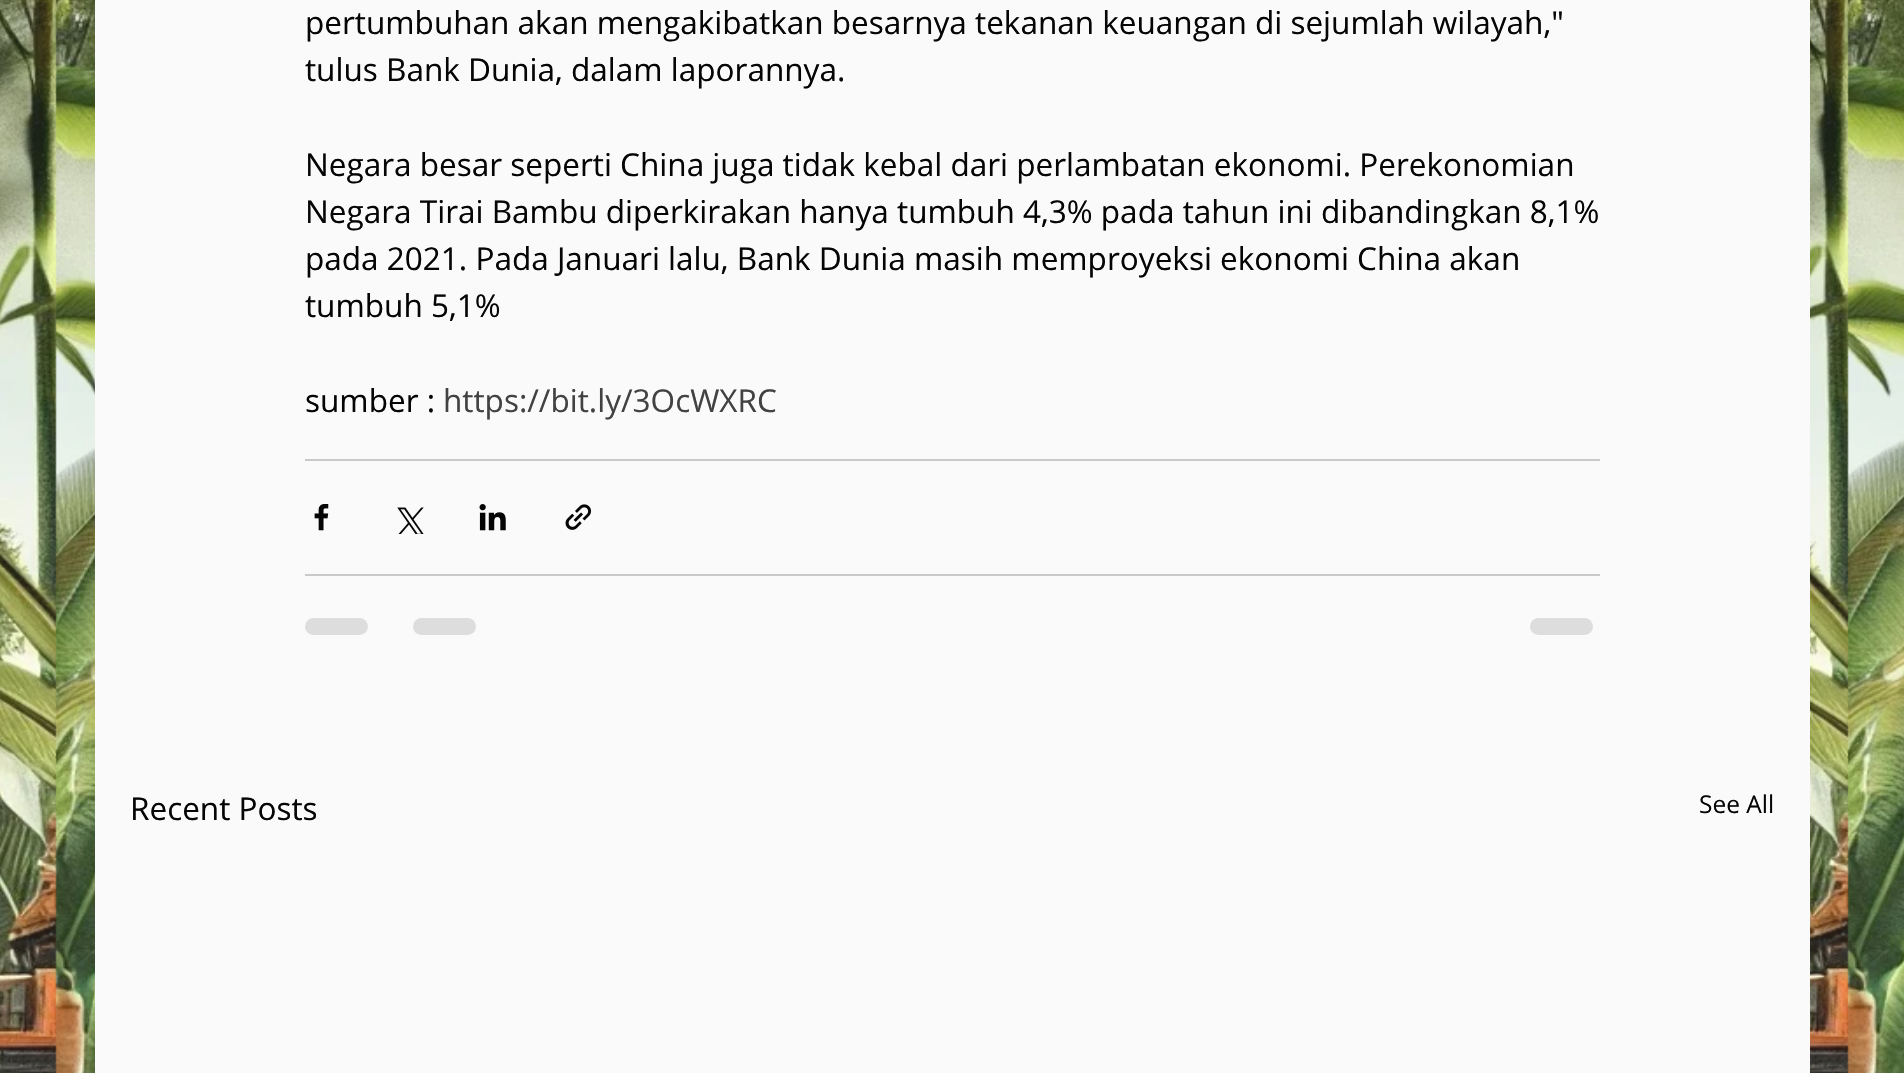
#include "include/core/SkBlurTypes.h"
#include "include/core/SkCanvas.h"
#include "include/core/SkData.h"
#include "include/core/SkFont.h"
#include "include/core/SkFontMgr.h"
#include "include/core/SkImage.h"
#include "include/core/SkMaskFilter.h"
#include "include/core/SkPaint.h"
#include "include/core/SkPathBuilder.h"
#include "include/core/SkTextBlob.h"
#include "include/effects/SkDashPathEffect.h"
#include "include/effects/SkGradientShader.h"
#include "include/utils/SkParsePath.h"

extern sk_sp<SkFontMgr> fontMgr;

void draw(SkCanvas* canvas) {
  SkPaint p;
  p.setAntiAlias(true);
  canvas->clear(SK_ColorWHITE);
  canvas->drawImageRect(SkImages::DeferredFromEncodedData(SkData::MakeFromFileName("images/1.png")), SkRect::MakeLTRB(0, 0, 1904, 1073), SkSamplingOptions());
  p.setColor(SkColorSetRGB(250, 250, 250));
  canvas->drawRect(SkRect::MakeLTRB(95, 0, 1810, 1073), p);
  p.setColor(SkColorSetRGB(201, 201, 201));
  canvas->drawRect(SkRect::MakeLTRB(305, 459, 1600, 461), p);
  canvas->drawImageRect(SkImages::DeferredFromEncodedData(SkData::MakeFromFileName("images/2.png")), SkRect::MakeLTRB(314, 504, 329, 531), SkSamplingOptions());
  canvas->drawImageRect(SkImages::DeferredFromEncodedData(SkData::MakeFromFileName("images/3.png")), SkRect::MakeLTRB(397, 507, 424, 534), SkSamplingOptions());
  canvas->drawImageRect(SkImages::DeferredFromEncodedData(SkData::MakeFromFileName("images/4.png")), SkRect::MakeLTRB(479, 504, 506, 531), SkSamplingOptions());
  canvas->drawImageRect(SkImages::DeferredFromEncodedData(SkData::MakeFromFileName("images/5.png")), SkRect::MakeLTRB(565, 504, 592, 530), SkSamplingOptions());
  canvas->drawRect(SkRect::MakeLTRB(305, 574, 1600, 576), p);
  p.setColor(SkColorSetRGB(221, 221, 221));
  canvas->drawRoundRect(SkRect::MakeLTRB(305, 618, 368, 635), 8.5f, 8.5f, p);
  canvas->drawRoundRect(SkRect::MakeLTRB(413, 618, 476, 635), 8.5f, 8.5f, p);
  canvas->drawRoundRect(SkRect::MakeLTRB(1530, 618, 1593, 635), 8.5f, 8.5f, p);
  SkFont font1(fontMgr->matchFamilyStyle("Open Sans", SkFontStyle::Normal()), 31.5f);
  font1.setSubpixel(true);
  p.setColor(SkColorSetRGB(5, 5, 5));
  canvas->drawString("pertumbuhan akan mengakibatkan besarnya tekanan keuangan di sejumlah wilayah,\"", 305, 34, font1, p);
  canvas->drawString("tulus Bank Dunia, dalam laporannya.", 305, 81, font1, p);
  canvas->drawString("Negara besar seperti China juga tidak kebal dari perlambatan ekonomi. Perekonomian", 305, 176, font1, p);
  canvas->drawString("Negara Tirai Bambu diperkirakan hanya tumbuh 4,3% pada tahun ini dibandingkan 8,1%", 305, 223, font1, p);
  canvas->drawString("pada 2021. Pada Januari lalu, Bank Dunia masih memproyeksi ekonomi China akan", 305, 270, font1, p);
  canvas->drawString("tumbuh 5,1%", 305, 317, font1, p);
  canvas->drawString("sumber :", 305, 412, font1, p);
  p.setColor(SkColorSetRGB(66, 66, 66));
  canvas->drawString("https://bit.ly/3OcWXRC", 443, 412, font1, p);
  p.setColor(SkColorSetRGB(5, 5, 5));
  canvas->drawString("Recent Posts", 130, 820, font1, p);
  SkFont font2(fontMgr->matchFamilyStyle("Open Sans", SkFontStyle::Normal()), 24.5f);
  font2.setSubpixel(true);
  canvas->drawString("See All", 1699, 813, font2, p);
}
